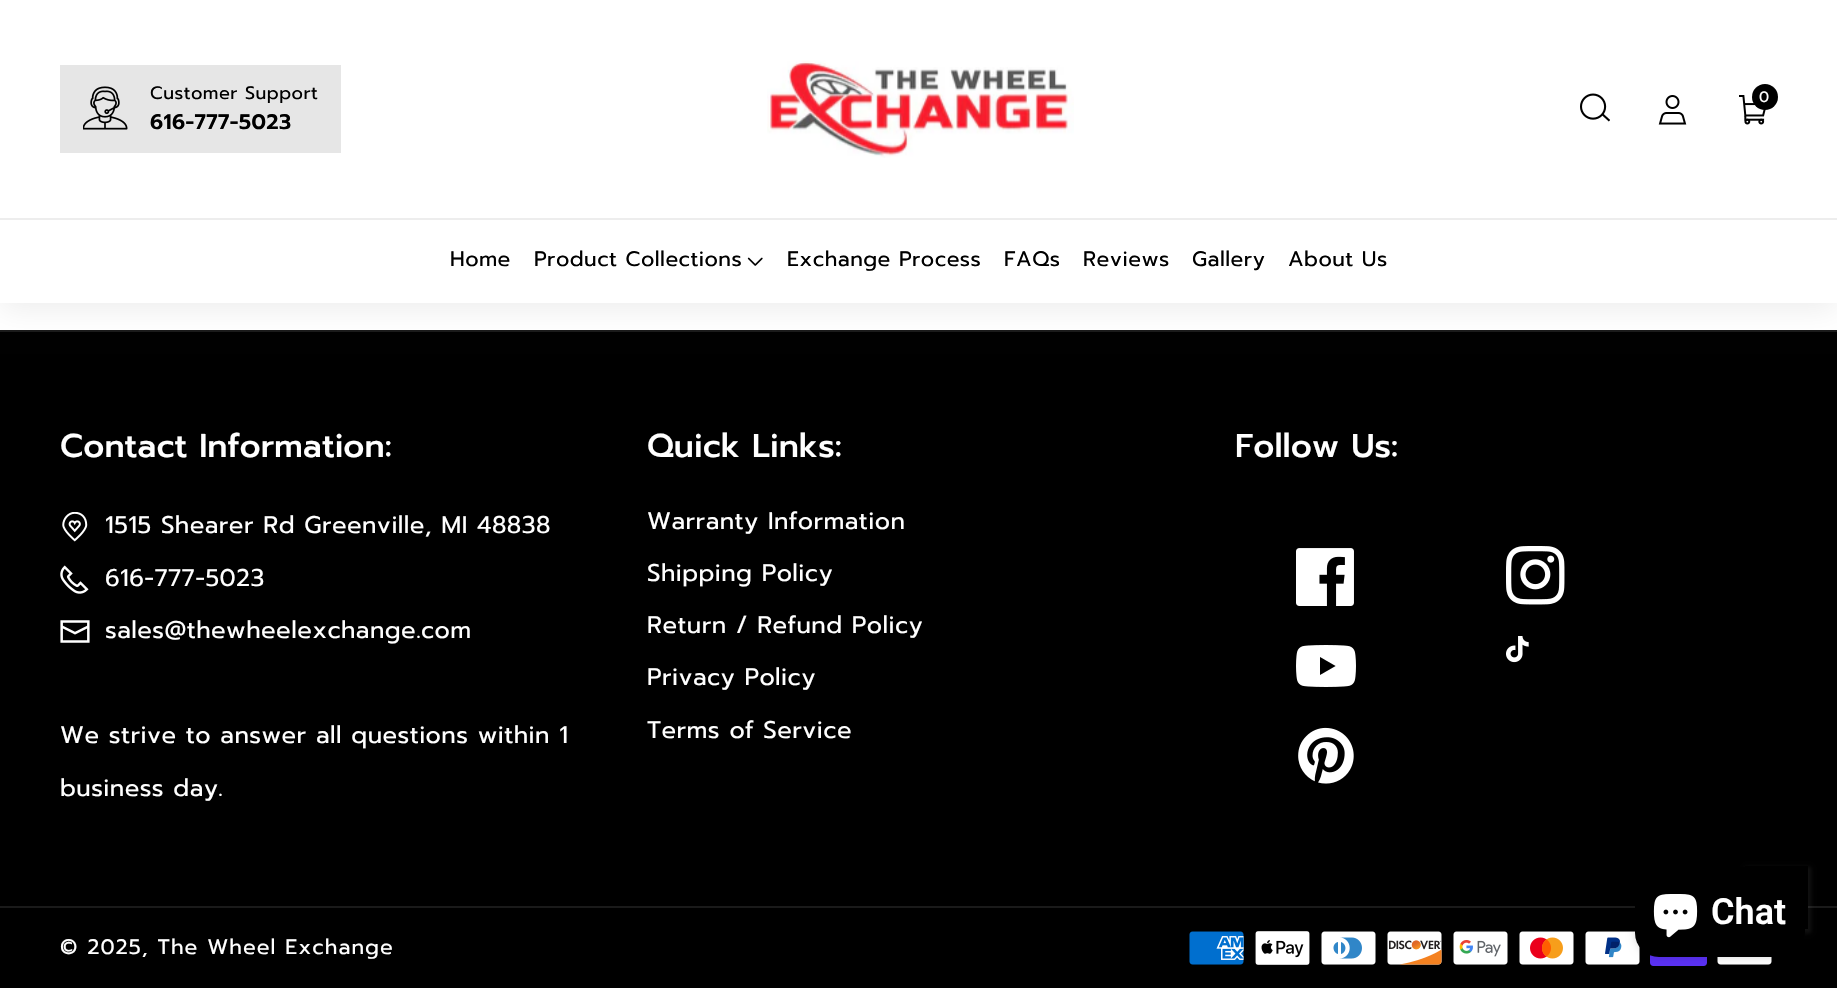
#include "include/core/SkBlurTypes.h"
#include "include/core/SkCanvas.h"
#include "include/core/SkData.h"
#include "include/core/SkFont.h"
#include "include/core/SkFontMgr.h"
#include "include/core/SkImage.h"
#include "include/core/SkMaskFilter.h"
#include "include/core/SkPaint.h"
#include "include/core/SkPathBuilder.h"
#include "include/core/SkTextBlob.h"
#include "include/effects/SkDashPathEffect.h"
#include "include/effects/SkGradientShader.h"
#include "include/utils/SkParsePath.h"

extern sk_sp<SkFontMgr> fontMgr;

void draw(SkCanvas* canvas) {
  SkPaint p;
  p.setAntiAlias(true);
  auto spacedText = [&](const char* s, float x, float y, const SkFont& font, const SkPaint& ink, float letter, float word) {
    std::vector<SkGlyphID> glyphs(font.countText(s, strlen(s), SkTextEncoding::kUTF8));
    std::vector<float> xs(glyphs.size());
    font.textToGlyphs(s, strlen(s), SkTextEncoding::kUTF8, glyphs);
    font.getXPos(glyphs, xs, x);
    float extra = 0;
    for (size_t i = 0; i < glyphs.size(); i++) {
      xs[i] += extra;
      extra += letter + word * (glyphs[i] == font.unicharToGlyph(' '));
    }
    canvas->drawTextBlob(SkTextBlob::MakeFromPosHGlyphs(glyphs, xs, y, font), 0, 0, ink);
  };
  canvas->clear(SK_ColorWHITE);
  p.setColor(SK_ColorBLACK);
  canvas->drawRect(SkRect::MakeLTRB(0, 332, 1837, 988), p);
  p.setColor(SkColorSetRGB(26, 26, 26));
  canvas->drawRect(SkRect::MakeLTRB(0, 330, 1837, 332), p);
  p.setColor(SkColorSetARGB(20, 18, 18, 18));
  p.setMaskFilter(SkMaskFilter::MakeBlur(kNormal_SkBlurStyle, 15));
  canvas->drawRect(SkRect::MakeLTRB(0, 6, 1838, 309), p);
  p.setMaskFilter(nullptr);
  p.setColor(SK_ColorWHITE);
  canvas->drawRect(SkRect::MakeLTRB(0, 0, 1837, 303), p);
  p.setColor(SkColorSetRGB(230, 230, 230));
  canvas->drawRect(SkRect::MakeLTRB(60, 65, 341, 153), p);
  canvas->drawImageRect(SkImages::DeferredFromEncodedData(SkData::MakeFromFileName("images/1.png")), SkRect::MakeLTRB(83, 86, 128, 130), SkSamplingOptions());
  canvas->drawImageRect(SkImages::DeferredFromEncodedData(SkData::MakeFromFileName("images/2.png")), SkRect::MakeLTRB(767, 60, 1074, 158), SkSamplingOptions());
  canvas->drawImageRect(SkImages::DeferredFromEncodedData(SkData::MakeFromFileName("images/3.png")), SkRect::MakeLTRB(1580, 93, 1610, 122), SkSamplingOptions());
  canvas->drawImageRect(SkImages::DeferredFromEncodedData(SkData::MakeFromFileName("images/4.png")), SkRect::MakeLTRB(1658, 95, 1687, 125), SkSamplingOptions());
  canvas->drawImageRect(SkImages::DeferredFromEncodedData(SkData::MakeFromFileName("images/5.png")), SkRect::MakeLTRB(1739, 95, 1766, 125), SkSamplingOptions());
  p.setColor(SK_ColorBLACK);
  canvas->drawCircle(1765, 97, 13, p);
  p.setColor(SkColorSetRGB(237, 237, 237));
  canvas->drawRect(SkRect::MakeLTRB(0, 218, 1837, 220), p);
  canvas->drawImageRect(SkImages::DeferredFromEncodedData(SkData::MakeFromFileName("images/6.png")), SkRect::MakeLTRB(747, 257, 763, 266), SkSamplingOptions());
  canvas->drawImageRect(SkImages::DeferredFromEncodedData(SkData::MakeFromFileName("images/7.png")), SkRect::MakeLTRB(62, 512, 88, 542), SkSamplingOptions());
  canvas->drawImageRect(SkImages::DeferredFromEncodedData(SkData::MakeFromFileName("images/8.png")), SkRect::MakeLTRB(60, 565, 89, 594), SkSamplingOptions());
  canvas->drawImageRect(SkImages::DeferredFromEncodedData(SkData::MakeFromFileName("images/9.png")), SkRect::MakeLTRB(60, 620, 90, 643), SkSamplingOptions());
  canvas->drawImageRect(SkImages::DeferredFromEncodedData(SkData::MakeFromFileName("images/10.png")), SkRect::MakeLTRB(1296, 548, 1354, 606), SkSamplingOptions());
  canvas->drawImageRect(SkImages::DeferredFromEncodedData(SkData::MakeFromFileName("images/11.png")), SkRect::MakeLTRB(1506, 546, 1565, 605), SkSamplingOptions());
  canvas->drawImageRect(SkImages::DeferredFromEncodedData(SkData::MakeFromFileName("images/12.png")), SkRect::MakeLTRB(1296, 645, 1356, 687), SkSamplingOptions());
  canvas->drawImageRect(SkImages::DeferredFromEncodedData(SkData::MakeFromFileName("images/13.png")), SkRect::MakeLTRB(1506, 636, 1529, 663), SkSamplingOptions());
  canvas->drawImageRect(SkImages::DeferredFromEncodedData(SkData::MakeFromFileName("images/14.png")), SkRect::MakeLTRB(1298, 727, 1354, 784), SkSamplingOptions());
  p.setColor(SkColorSetRGB(26, 26, 26));
  canvas->drawRect(SkRect::MakeLTRB(0, 906, 1837, 908), p);
  p.setColor(SkColorSetARGB(18, 255, 255, 255));
  p.setMaskFilter(SkMaskFilter::MakeBlur(kNormal_SkBlurStyle, 2));
  canvas->drawRect(SkRect::MakeLTRB(1745, 867, 1811, 933), p);
  p.setMaskFilter(nullptr);
  p.setColor(SK_ColorBLACK);
  canvas->drawRect(SkRect::MakeLTRB(1745, 866, 1808, 867), p);
  canvas->drawRect(SkRect::MakeLTRB(1781, 867, 1808, 927), p);
  canvas->drawRect(SkRect::MakeLTRB(1805, 927, 1808, 929), p);
  canvas->drawImageRect(SkImages::DeferredFromEncodedData(SkData::MakeFromFileName("images/15.png")), SkRect::MakeLTRB(1189, 931, 1244, 965), SkSamplingOptions());
  canvas->drawImageRect(SkImages::DeferredFromEncodedData(SkData::MakeFromFileName("images/16.png")), SkRect::MakeLTRB(1255, 931, 1310, 965), SkSamplingOptions());
  canvas->drawImageRect(SkImages::DeferredFromEncodedData(SkData::MakeFromFileName("images/17.png")), SkRect::MakeLTRB(1321, 931, 1376, 965), SkSamplingOptions());
  canvas->drawImageRect(SkImages::DeferredFromEncodedData(SkData::MakeFromFileName("images/18.png")), SkRect::MakeLTRB(1387, 931, 1442, 965), SkSamplingOptions());
  canvas->drawImageRect(SkImages::DeferredFromEncodedData(SkData::MakeFromFileName("images/19.png")), SkRect::MakeLTRB(1453, 931, 1508, 965), SkSamplingOptions());
  canvas->drawImageRect(SkImages::DeferredFromEncodedData(SkData::MakeFromFileName("images/20.png")), SkRect::MakeLTRB(1519, 931, 1574, 965), SkSamplingOptions());
  canvas->drawImageRect(SkImages::DeferredFromEncodedData(SkData::MakeFromFileName("images/21.png")), SkRect::MakeLTRB(1585, 931, 1640, 965), SkSamplingOptions());
  canvas->drawImageRect(SkImages::DeferredFromEncodedData(SkData::MakeFromFileName("images/22.png")), SkRect::MakeLTRB(1650, 955, 1707, 966), SkSamplingOptions());
  canvas->drawImageRect(SkImages::DeferredFromEncodedData(SkData::MakeFromFileName("images/23.png")), SkRect::MakeLTRB(1717, 957, 1772, 965), SkSamplingOptions());
  p.setColor(SkColorSetARGB(38, 0, 0, 0));
  p.setMaskFilter(SkMaskFilter::MakeBlur(kNormal_SkBlurStyle, 4));
  canvas->drawRoundRect(SkRect::MakeLTRB(1635, 867, 1805, 957), 24, 24, p);
  p.setMaskFilter(nullptr);
  p.setColor(SK_ColorBLACK);
  canvas->drawRoundRect(SkRect::MakeLTRB(1635, 867, 1805, 957), 24, 24, p);
  canvas->drawImageRect(SkImages::DeferredFromEncodedData(SkData::MakeFromFileName("images/24.png")), SkRect::MakeLTRB(1653, 894, 1698, 938), SkSamplingOptions());
  SkFont font1(fontMgr->matchFamilyStyle("Prompt", SkFontStyle::Normal()), 18);
  font1.setSubpixel(true);
  spacedText("Customer Support", 150, 99, font1, p, 0.45f, 0);
  SkFont font2(fontMgr->matchFamilyStyle("Prompt", SkFontStyle(600, SkFontStyle::kNormal_Width, SkFontStyle::kUpright_Slant)), 21);
  font2.setSubpixel(true);
  spacedText("616-777-5023", 150, 129, font2, p, 0.45f, 0);
  SkFont font3(fontMgr->matchFamilyStyle("Prompt", SkFontStyle::Normal()), 15);
  font3.setSubpixel(true);
  p.setColor(SK_ColorWHITE);
  spacedText("0", 1759, 102, font3, p, 0.45f, 0);
  SkFont font4(fontMgr->matchFamilyStyle("Prompt", SkFontStyle::Normal()), 21);
  font4.setSubpixel(true);
  p.setColor(SK_ColorBLACK);
  spacedText("Home", 450, 266, font4, p, 0.45f, 0);
  spacedText("Product Collections", 534, 266, font4, p, 0.45f, 0);
  spacedText("Exchange Process", 787, 266, font4, p, 0.45f, 0);
  spacedText("FAQs", 1004, 266, font4, p, 0.45f, 0);
  spacedText("Reviews", 1083, 266, font4, p, 0.45f, 0);
  spacedText("Gallery", 1192, 266, font4, p, 0.45f, 0);
  spacedText("About Us", 1288, 266, font4, p, 0.45f, 0);
  SkFont font5(fontMgr->matchFamilyStyle("Prompt", SkFontStyle(500, SkFontStyle::kNormal_Width, SkFontStyle::kUpright_Slant)), 33);
  font5.setSubpixel(true);
  p.setColor(SK_ColorWHITE);
  canvas->drawString("Contact Information:", 60, 457, font5, p);
  SkFont font6(fontMgr->matchFamilyStyle("Prompt", SkFontStyle::Normal()), 24);
  font6.setSubpixel(true);
  spacedText("1515 Shearer Rd Greenville, MI 48838", 105, 533, font6, p, 0.45f, 0);
  spacedText("616-777-5023", 105, 586, font6, p, 0.45f, 0);
  spacedText("sales@thewheelexchange.com", 105, 638, font6, p, 0.45f, 0);
  spacedText("We strive to answer all questions within 1", 60, 743, font6, p, 0.45f, 0);
  spacedText("business day.", 60, 796, font6, p, 0.45f, 0);
  canvas->drawString("Quick Links:", 647, 457, font5, p);
  spacedText("Warranty Information", 647, 529, font6, p, 0.45f, 0);
  spacedText("Shipping Policy", 647, 581, font6, p, 0.45f, 0);
  spacedText("Return / Refund Policy", 647, 633, font6, p, 0.45f, 0);
  spacedText("Privacy Policy", 647, 685, font6, p, 0.45f, 0);
  spacedText("Terms of Service", 647, 738, font6, p, 0.45f, 0);
  canvas->drawString("Follow Us:", 1235, 457, font5, p);
  spacedText("© 2025, The Wheel Exchange", 60, 954, font4, p, 1.05f, 0);
  SkFont font7(fontMgr->matchFamilyStyle("Roboto", SkFontStyle(600, SkFontStyle::kNormal_Width, SkFontStyle::kUpright_Slant)), 36);
  font7.setSubpixel(true);
  canvas->drawString("Chat", 1711, 924, font7, p);
}
